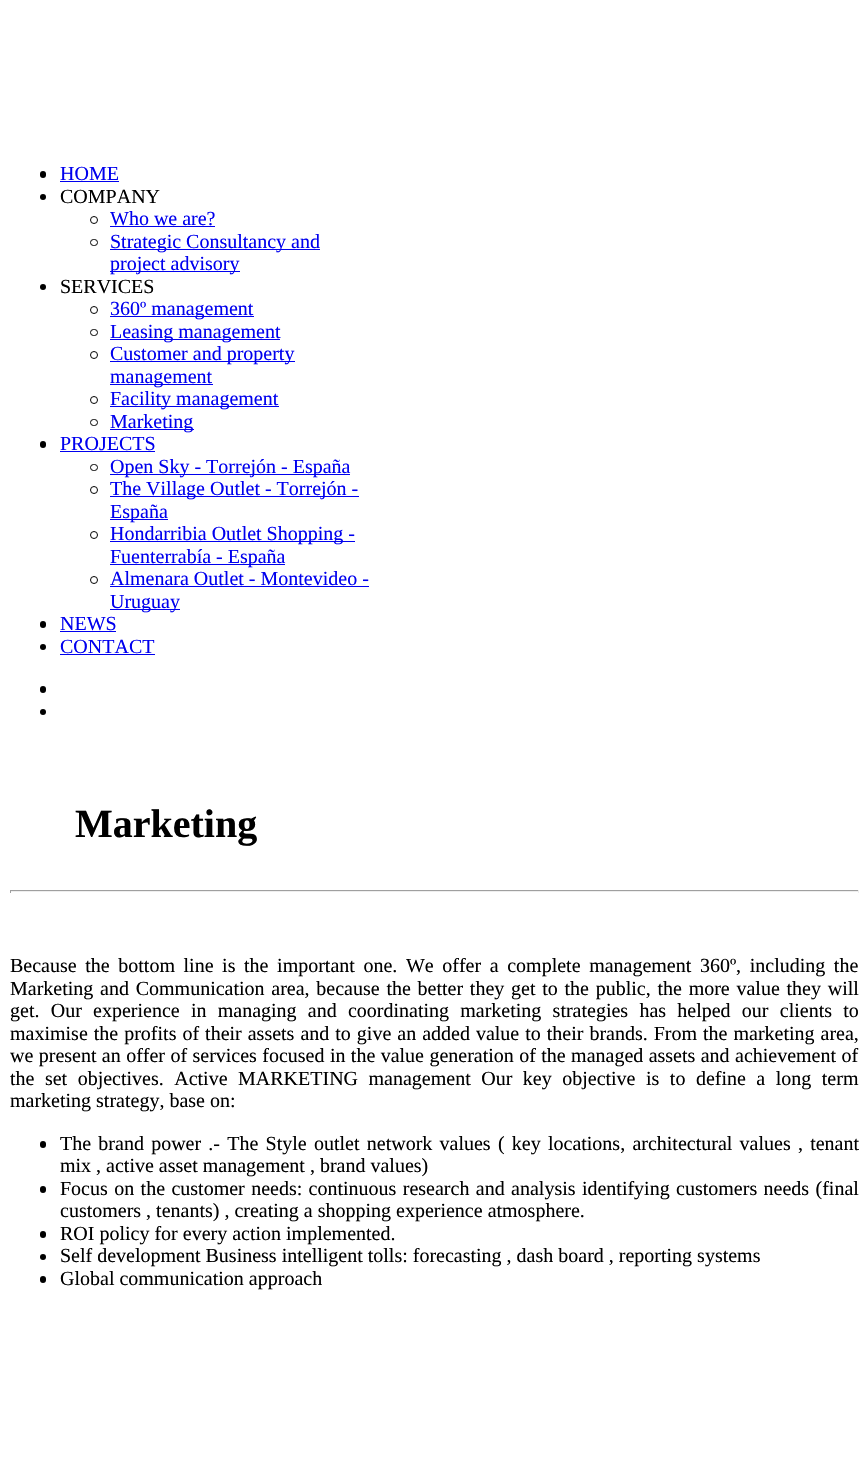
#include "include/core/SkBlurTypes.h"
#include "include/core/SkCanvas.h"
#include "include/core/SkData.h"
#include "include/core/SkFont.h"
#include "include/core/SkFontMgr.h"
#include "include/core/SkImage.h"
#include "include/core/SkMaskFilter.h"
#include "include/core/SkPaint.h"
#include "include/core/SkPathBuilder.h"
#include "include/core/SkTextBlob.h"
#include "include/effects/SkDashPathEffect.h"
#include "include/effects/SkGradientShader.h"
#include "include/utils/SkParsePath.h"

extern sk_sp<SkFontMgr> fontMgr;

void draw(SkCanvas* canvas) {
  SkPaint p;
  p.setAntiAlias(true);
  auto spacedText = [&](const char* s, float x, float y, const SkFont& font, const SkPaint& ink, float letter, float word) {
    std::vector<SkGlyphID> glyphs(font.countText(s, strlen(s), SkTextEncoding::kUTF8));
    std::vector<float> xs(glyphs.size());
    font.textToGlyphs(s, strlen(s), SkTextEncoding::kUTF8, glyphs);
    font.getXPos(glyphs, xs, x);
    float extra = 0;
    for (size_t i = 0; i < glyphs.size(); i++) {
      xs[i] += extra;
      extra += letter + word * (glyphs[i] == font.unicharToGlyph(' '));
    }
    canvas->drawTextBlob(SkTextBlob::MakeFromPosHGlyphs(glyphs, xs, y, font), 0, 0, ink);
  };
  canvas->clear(SK_ColorWHITE);
  p.setColor(SK_ColorBLACK);
  canvas->drawRoundRect(SkRect::MakeLTRB(40, 171, 46, 178), 3, 3, p);
  p.setColor(SkColorSetRGB(0, 0, 238));
  canvas->drawRect(SkRect::MakeLTRB(60, 181, 119, 182), p);
  p.setColor(SK_ColorBLACK);
  canvas->drawCircle(43, 197, 3, p);
  p.setStyle(SkPaint::kStroke_Style);
  p.setStrokeWidth(1);
  canvas->drawCircle(94, 220, 3.5f, p);
  p.setStyle(SkPaint::kFill_Style);
  p.setColor(SkColorSetRGB(0, 0, 238));
  canvas->drawRect(SkRect::MakeLTRB(110, 226, 215, 227), p);
  p.setStyle(SkPaint::kStroke_Style);
  p.setColor(SK_ColorBLACK);
  canvas->drawRoundRect(SkRect::MakeLTRB(90.5f, 239.5f, 97.5f, 245.5f), 3, 3, p);
  p.setStyle(SkPaint::kFill_Style);
  p.setColor(SkColorSetRGB(0, 0, 238));
  canvas->drawRect(SkRect::MakeLTRB(110, 249, 320, 250), p);
  canvas->drawRect(SkRect::MakeLTRB(110, 271, 240, 272), p);
  p.setColor(SK_ColorBLACK);
  canvas->drawCircle(43, 287, 3, p);
  p.setStyle(SkPaint::kStroke_Style);
  canvas->drawCircle(94, 310, 3.5f, p);
  p.setStyle(SkPaint::kFill_Style);
  p.setColor(SkColorSetRGB(0, 0, 238));
  canvas->drawRect(SkRect::MakeLTRB(110, 316, 254, 317), p);
  p.setStyle(SkPaint::kStroke_Style);
  p.setColor(SK_ColorBLACK);
  canvas->drawRoundRect(SkRect::MakeLTRB(90.5f, 329.5f, 97.5f, 335.5f), 3, 3, p);
  p.setStyle(SkPaint::kFill_Style);
  p.setColor(SkColorSetRGB(0, 0, 238));
  canvas->drawRect(SkRect::MakeLTRB(110, 339, 280, 340), p);
  p.setStyle(SkPaint::kStroke_Style);
  p.setColor(SK_ColorBLACK);
  canvas->drawCircle(94, 355, 3.5f, p);
  p.setStyle(SkPaint::kFill_Style);
  p.setColor(SkColorSetRGB(0, 0, 238));
  canvas->drawRect(SkRect::MakeLTRB(110, 361, 295, 362), p);
  canvas->drawRect(SkRect::MakeLTRB(110, 384, 213, 385), p);
  p.setStyle(SkPaint::kStroke_Style);
  p.setColor(SK_ColorBLACK);
  canvas->drawCircle(94, 400, 3.5f, p);
  p.setStyle(SkPaint::kFill_Style);
  p.setColor(SkColorSetRGB(0, 0, 238));
  canvas->drawRect(SkRect::MakeLTRB(110, 406, 279, 407), p);
  p.setStyle(SkPaint::kStroke_Style);
  p.setColor(SK_ColorBLACK);
  canvas->drawRoundRect(SkRect::MakeLTRB(90.5f, 419.5f, 97.5f, 425.5f), 3, 3, p);
  p.setStyle(SkPaint::kFill_Style);
  p.setColor(SkColorSetRGB(0, 0, 238));
  canvas->drawRect(SkRect::MakeLTRB(110, 429, 194, 430), p);
  p.setColor(SK_ColorBLACK);
  canvas->drawRoundRect(SkRect::MakeLTRB(40, 441, 46, 448), 3, 3, p);
  p.setColor(SkColorSetRGB(0, 0, 238));
  canvas->drawRect(SkRect::MakeLTRB(60, 451, 155, 452), p);
  p.setStyle(SkPaint::kStroke_Style);
  p.setColor(SK_ColorBLACK);
  canvas->drawRoundRect(SkRect::MakeLTRB(90.5f, 464.5f, 97.5f, 470.5f), 3, 3, p);
  p.setStyle(SkPaint::kFill_Style);
  p.setColor(SkColorSetRGB(0, 0, 238));
  canvas->drawRect(SkRect::MakeLTRB(110, 474, 350, 475), p);
  p.setStyle(SkPaint::kStroke_Style);
  p.setColor(SK_ColorBLACK);
  canvas->drawCircle(94, 490, 3.5f, p);
  p.setStyle(SkPaint::kFill_Style);
  p.setColor(SkColorSetRGB(0, 0, 238));
  canvas->drawRect(SkRect::MakeLTRB(110, 496, 359, 497), p);
  canvas->drawRect(SkRect::MakeLTRB(110, 519, 168, 520), p);
  p.setStyle(SkPaint::kStroke_Style);
  p.setColor(SK_ColorBLACK);
  canvas->drawCircle(94, 535, 3.5f, p);
  p.setStyle(SkPaint::kFill_Style);
  p.setColor(SkColorSetRGB(0, 0, 238));
  canvas->drawRect(SkRect::MakeLTRB(110, 541, 355, 542), p);
  canvas->drawRect(SkRect::MakeLTRB(110, 564, 285, 565), p);
  p.setStyle(SkPaint::kStroke_Style);
  p.setColor(SK_ColorBLACK);
  canvas->drawCircle(94, 580, 3.5f, p);
  p.setStyle(SkPaint::kFill_Style);
  p.setColor(SkColorSetRGB(0, 0, 238));
  canvas->drawRect(SkRect::MakeLTRB(110, 586, 369, 587), p);
  canvas->drawRect(SkRect::MakeLTRB(110, 609, 180, 610), p);
  p.setColor(SK_ColorBLACK);
  canvas->drawRoundRect(SkRect::MakeLTRB(40, 621, 46, 628), 3, 3, p);
  p.setColor(SkColorSetRGB(0, 0, 238));
  canvas->drawRect(SkRect::MakeLTRB(60, 631, 116, 632), p);
  p.setColor(SK_ColorBLACK);
  canvas->drawCircle(43, 647, 3, p);
  p.setColor(SkColorSetRGB(0, 0, 238));
  canvas->drawRect(SkRect::MakeLTRB(60, 654, 155, 655), p);
  p.setColor(SK_ColorBLACK);
  canvas->drawRoundRect(SkRect::MakeLTRB(40, 686, 46, 693), 3, 3, p);
  canvas->drawCircle(43, 712, 3, p);
  p.setColor(SkColorSetRGB(159, 159, 159));
  canvas->drawRect(SkRect::MakeLTRB(10, 890, 859, 891), p);
  p.setColor(SkColorSetRGB(238, 238, 238));
  canvas->drawRect(SkRect::MakeLTRB(858, 890, 859, 893), p);
  canvas->drawRect(SkRect::MakeLTRB(10, 891, 859, 892), p);
  p.setColor(SkColorSetRGB(159, 159, 159));
  canvas->drawRect(SkRect::MakeLTRB(10, 890, 11, 893), p);
  p.setColor(SK_ColorBLACK);
  canvas->drawRoundRect(SkRect::MakeLTRB(40, 1141, 46, 1148), 3, 3, p);
  canvas->drawRoundRect(SkRect::MakeLTRB(40, 1186, 46, 1193), 3, 3, p);
  canvas->drawRoundRect(SkRect::MakeLTRB(40, 1231, 46, 1238), 3, 3, p);
  canvas->drawCircle(43, 1257, 3, p);
  canvas->drawRoundRect(SkRect::MakeLTRB(40, 1276, 46, 1283), 3, 3, p);
  SkFont font1(fontMgr->matchFamilyStyle("Liberation Serif", SkFontStyle::Normal()), 20);
  font1.setSubpixel(true);
  p.setColor(SkColorSetRGB(0, 0, 238));
  canvas->drawString("HOME", 60, 180, font1, p);
  p.setColor(SK_ColorBLACK);
  canvas->drawString("COMPANY", 60, 203, font1, p);
  p.setColor(SkColorSetRGB(0, 0, 238));
  canvas->drawString("Who we are?", 110, 225, font1, p);
  canvas->drawString("Strategic Consultancy and", 110, 248, font1, p);
  canvas->drawString("project advisory", 110, 270, font1, p);
  p.setColor(SK_ColorBLACK);
  canvas->drawString("SERVICES", 60, 293, font1, p);
  p.setColor(SkColorSetRGB(0, 0, 238));
  canvas->drawString("360º management", 110, 315, font1, p);
  canvas->drawString("Leasing management", 110, 338, font1, p);
  canvas->drawString("Customer and property", 110, 360, font1, p);
  canvas->drawString("management", 110, 383, font1, p);
  canvas->drawString("Facility management", 110, 405, font1, p);
  canvas->drawString("Marketing", 110, 428, font1, p);
  canvas->drawString("PROJECTS", 60, 450, font1, p);
  canvas->drawString("Open Sky - Torrejón - España", 110, 473, font1, p);
  canvas->drawString("The Village Outlet - Torrejón -", 110, 495, font1, p);
  canvas->drawString("España", 110, 518, font1, p);
  canvas->drawString("Hondarribia Outlet Shopping -", 110, 540, font1, p);
  canvas->drawString("Fuenterrabía - España", 110, 563, font1, p);
  canvas->drawString("Almenara Outlet - Montevideo -", 110, 585, font1, p);
  canvas->drawString("Uruguay", 110, 608, font1, p);
  canvas->drawString("NEWS", 60, 630, font1, p);
  canvas->drawString("CONTACT", 60, 653, font1, p);
  SkFont font2(fontMgr->matchFamilyStyle("Liberation Serif", SkFontStyle::Bold()), 40);
  font2.setSubpixel(true);
  p.setColor(SK_ColorBLACK);
  canvas->drawString("Marketing", 75, 837, font2, p);
  spacedText("Because the bottom line is the important one. We offer a complete management 360º, including the", 10, 972, font1, p, 0, 3.6f);
  spacedText("Marketing and Communication area, because the better they get to the public, the more value they will", 10, 995, font1, p, 0, 1.75f);
  spacedText("get. Our experience in managing and coordinating marketing strategies has helped our clients to", 10, 1017, font1, p, 0, 6.25f);
  spacedText("maximise the profits of their assets and to give an added value to their brands. From the marketing area,", 10, 1040, font1, p, 0, 1);
  spacedText("we present an offer of services focused in the value generation of the managed assets and achievement of", 10, 1062, font1, p, 0, 0.4f);
  spacedText("the set objectives. Active MARKETING management Our key objective is to define a long term", 10, 1085, font1, p, 0, 5.5f);
  canvas->drawString("marketing strategy, base on:", 10, 1107, font1, p);
  spacedText("The brand power .- The Style outlet network values ( key locations, architectural values , tenant", 60, 1150, font1, p, 0, 2.25f);
  canvas->drawString("mix , active asset management , brand values)", 60, 1172, font1, p);
  spacedText("Focus on the customer needs: continuous research and analysis identifying customers needs (final", 60, 1195, font1, p, 0, 1.4f);
  canvas->drawString("customers , tenants) , creating a shopping experience atmosphere.", 60, 1217, font1, p);
  canvas->drawString("ROI policy for every action implemented.", 60, 1240, font1, p);
  canvas->drawString("Self development Business intelligent tolls: forecasting , dash board , reporting systems", 60, 1262, font1, p);
  canvas->drawString("Global communication approach", 60, 1285, font1, p);
}
